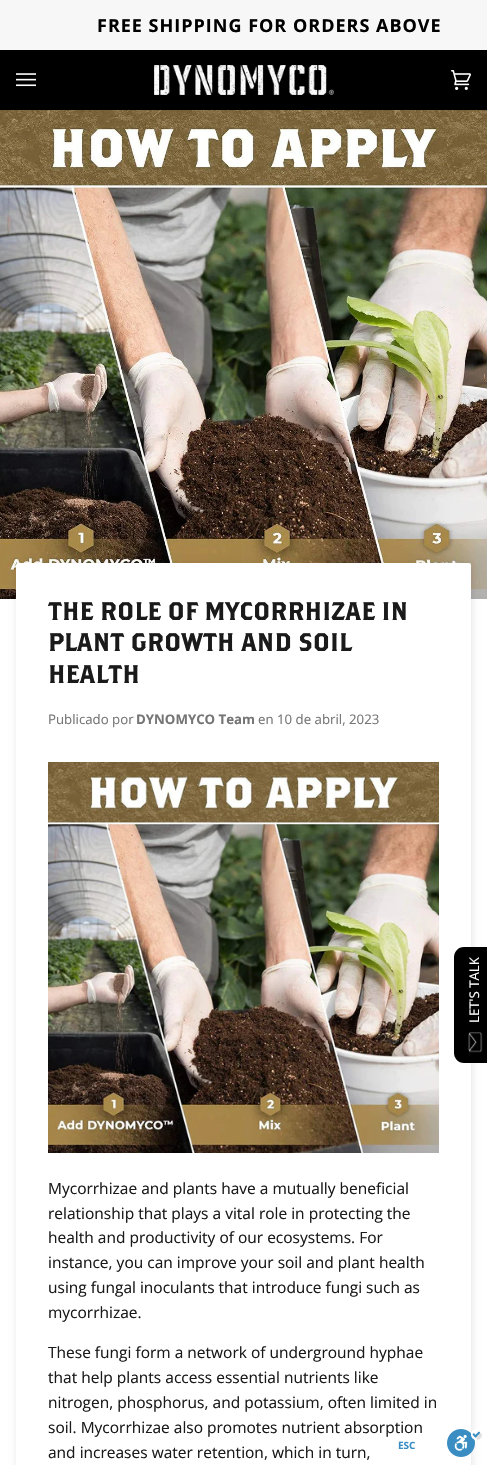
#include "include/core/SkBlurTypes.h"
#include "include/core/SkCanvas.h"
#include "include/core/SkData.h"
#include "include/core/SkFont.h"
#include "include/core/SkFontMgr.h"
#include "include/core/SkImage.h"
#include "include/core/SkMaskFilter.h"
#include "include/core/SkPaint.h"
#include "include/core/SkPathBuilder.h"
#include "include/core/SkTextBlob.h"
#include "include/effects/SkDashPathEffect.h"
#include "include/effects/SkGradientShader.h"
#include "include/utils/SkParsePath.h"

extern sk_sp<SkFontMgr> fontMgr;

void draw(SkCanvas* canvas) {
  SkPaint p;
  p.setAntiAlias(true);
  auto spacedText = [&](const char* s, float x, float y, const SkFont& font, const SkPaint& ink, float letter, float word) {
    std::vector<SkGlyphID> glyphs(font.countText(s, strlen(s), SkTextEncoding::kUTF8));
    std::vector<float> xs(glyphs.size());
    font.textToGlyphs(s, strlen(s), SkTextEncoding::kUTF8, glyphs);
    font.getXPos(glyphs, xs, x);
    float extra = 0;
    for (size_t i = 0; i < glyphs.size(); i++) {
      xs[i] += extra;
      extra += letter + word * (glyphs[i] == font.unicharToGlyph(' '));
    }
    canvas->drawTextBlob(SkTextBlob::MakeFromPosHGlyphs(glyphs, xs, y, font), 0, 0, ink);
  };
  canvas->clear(SK_ColorWHITE);
  p.setColor(SkColorSetRGB(247, 247, 247));
  canvas->drawRect(SkRect::MakeLTRB(0, 0, 487, 50), p);
  p.setColor(SK_ColorBLACK);
  canvas->drawRect(SkRect::MakeLTRB(0, 50, 487, 110), p);
  canvas->drawImageRect(SkImages::DeferredFromEncodedData(SkData::MakeFromFileName("images/1.png")), SkRect::MakeLTRB(16, 73, 36, 87), SkSamplingOptions());
  canvas->drawImageRect(SkImages::DeferredFromEncodedData(SkData::MakeFromFileName("images/2.png")), SkRect::MakeLTRB(154, 65, 334, 95), SkSamplingOptions());
  canvas->drawImageRect(SkImages::DeferredFromEncodedData(SkData::MakeFromFileName("images/3.png")), SkRect::MakeLTRB(451, 70, 471, 90), SkSamplingOptions());
  canvas->drawImageRect(SkImages::DeferredFromEncodedData(SkData::MakeFromFileName("images/4.png")), SkRect::MakeLTRB(0, 110, 487, 599), SkSamplingOptions());
  p.setColor(SkColorSetARGB(26, 0, 0, 0));
  p.setMaskFilter(SkMaskFilter::MakeBlur(kNormal_SkBlurStyle, 3.5f));
  canvas->drawRoundRect(SkRect::MakeLTRB(17, 564, 472, 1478), 2, 2, p);
  p.setMaskFilter(nullptr);
  p.setColor(SK_ColorWHITE);
  canvas->drawRoundRect(SkRect::MakeLTRB(16, 563, 471, 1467), 2, 2, p);
  canvas->drawImageRect(SkImages::DeferredFromEncodedData(SkData::MakeFromFileName("images/5.png")), SkRect::MakeLTRB(48, 762, 439, 1153), SkSamplingOptions());
  p.setColor(SK_ColorBLACK);
  canvas->drawPath(SkPathBuilder().moveTo(454, 1053).lineTo(454, 957).cubicTo(454, 952, 458, 947, 464, 947).lineTo(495, 947).lineTo(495, 1063).lineTo(464, 1063).cubicTo(458, 1063, 454, 1058, 454, 1053).close().detach(), p);
  canvas->drawImageRect(SkImages::DeferredFromEncodedData(SkData::MakeFromFileName("images/6.png")), SkRect::MakeLTRB(468, 1032, 483, 1053), SkSamplingOptions());
  canvas->drawImageRect(SkImages::DeferredFromEncodedData(SkData::MakeFromFileName("images/7.png")), SkRect::MakeLTRB(447, 1429, 482, 1457), SkSamplingOptions());
  SkFont font1(fontMgr->matchFamilyStyle("Open Sans", SkFontStyle::Bold()), 18);
  font1.setSubpixel(true);
  spacedText("FREE SHIPPING FOR ORDERS ABOVE", 97, 32, font1, p, 1, 0);
  SkFont font2(fontMgr->matchFamilyStyle("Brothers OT", SkFontStyle::Normal()), 25.5f);
  font2.setSubpixel(true);
  p.setColor(SkColorSetRGB(26, 26, 26));
  canvas->drawString("THE ROLE OF MYCORRHIZAE IN", 48, 620, font2, p);
  canvas->drawString("PLANT GROWTH AND SOIL", 48, 651, font2, p);
  canvas->drawString("HEALTH", 48, 683, font2, p);
  SkFont font3(fontMgr->matchFamilyStyle("Open Sans", SkFontStyle::Normal()), 13.25f);
  font3.setSubpixel(true);
  p.setColor(SkColorSetRGB(117, 117, 117));
  canvas->drawString("Publicado por", 48, 724, font3, p);
  SkFont font4(fontMgr->matchFamilyStyle("Open Sans", SkFontStyle::Bold()), 13.25f);
  font4.setSubpixel(true);
  canvas->drawString("DYNOMYCO Team", 136, 724, font4, p);
  canvas->drawString("en 10 de abril, 2023", 258, 724, font3, p);
  SkFont font5(fontMgr->matchFamilyStyle("Open Sans", SkFontStyle::Normal()), 15.5f);
  font5.setSubpixel(true);
  p.setColor(SkColorSetRGB(26, 26, 26));
  canvas->drawString("Mycorrhizae and plants have a mutually beneficial", 48, 1194, font5, p);
  canvas->drawString("relationship that plays a vital role in protecting the", 48, 1219, font5, p);
  canvas->drawString("health and productivity of our ecosystems. For", 48, 1243, font5, p);
  canvas->drawString("instance, you can improve your soil and plant health", 48, 1268, font5, p);
  canvas->drawString("using fungal inoculants that introduce fungi such as", 48, 1293, font5, p);
  canvas->drawString("mycorrhizae.", 48, 1318, font5, p);
  canvas->drawString("These fungi form a network of underground hyphae", 48, 1358, font5, p);
  canvas->drawString("that help plants access essential nutrients like", 48, 1383, font5, p);
  canvas->drawString("nitrogen, phosphorus, and potassium, often limited in", 48, 1408, font5, p);
  canvas->drawString("soil. Mycorrhizae also promotes nutrient absorption", 48, 1433, font5, p);
  canvas->drawString("and increases water retention, which in turn,", 48, 1458, font5, p);
  p.setColor(SK_ColorWHITE);
  canvas->save();
  canvas->rotate(-90, 479, 1023);
  canvas->drawString("LET'S TALK", 479, 1023, font3, p);
  canvas->restore();
  SkFont font6(fontMgr->matchFamilyStyle("Open Sans", SkFontStyle::Bold()), 10);
  font6.setSubpixel(true);
  p.setColor(SkColorSetRGB(58, 141, 194));
  canvas->drawString("ESC", 398, 1449, font6, p);
}
